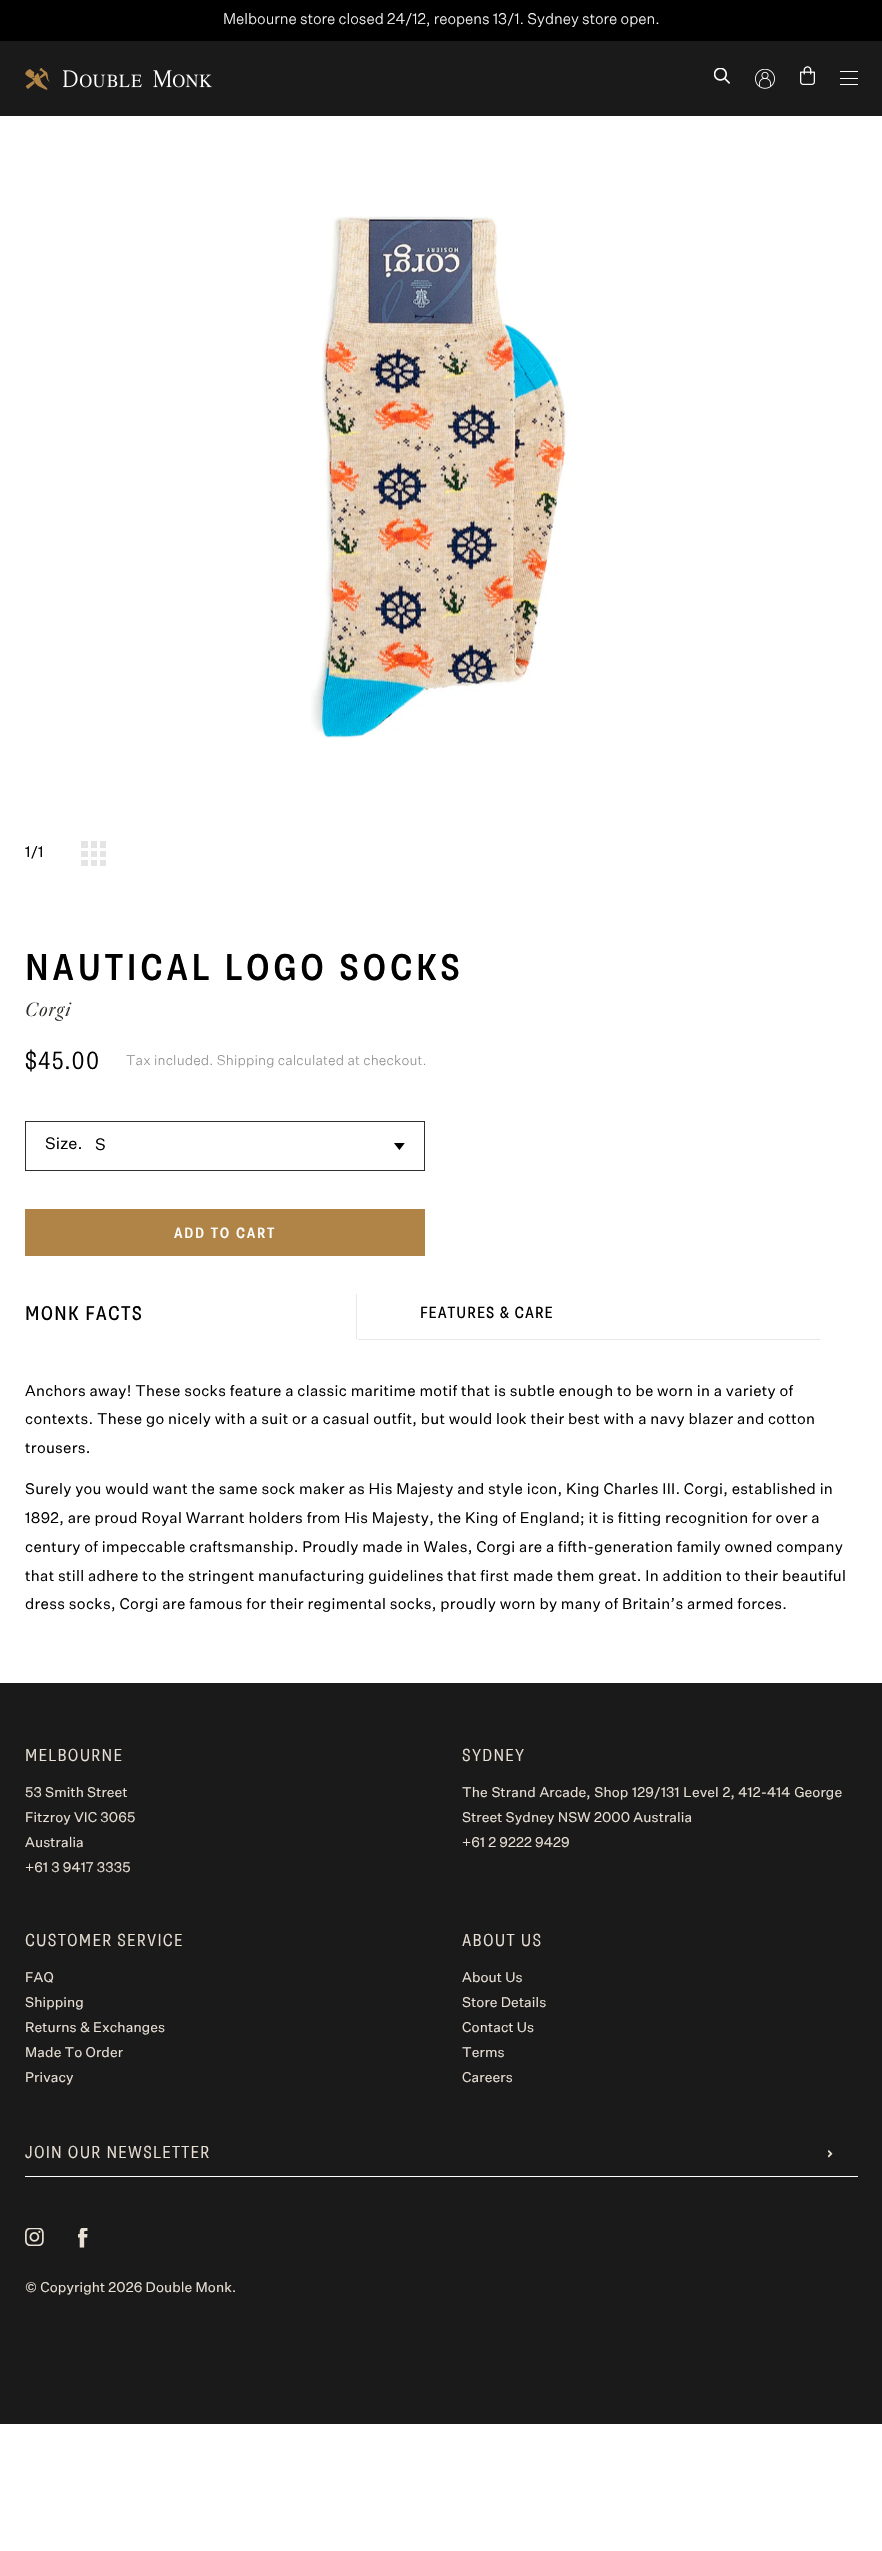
#include "include/core/SkBlurTypes.h"
#include "include/core/SkCanvas.h"
#include "include/core/SkData.h"
#include "include/core/SkFont.h"
#include "include/core/SkFontMgr.h"
#include "include/core/SkImage.h"
#include "include/core/SkMaskFilter.h"
#include "include/core/SkPaint.h"
#include "include/core/SkPathBuilder.h"
#include "include/core/SkTextBlob.h"
#include "include/effects/SkDashPathEffect.h"
#include "include/effects/SkGradientShader.h"
#include "include/utils/SkParsePath.h"

extern sk_sp<SkFontMgr> fontMgr;

void draw(SkCanvas* canvas) {
  SkPaint p;
  p.setAntiAlias(true);
  auto spacedText = [&](const char* s, float x, float y, const SkFont& font, const SkPaint& ink, float letter, float word) {
    std::vector<SkGlyphID> glyphs(font.countText(s, strlen(s), SkTextEncoding::kUTF8));
    std::vector<float> xs(glyphs.size());
    font.textToGlyphs(s, strlen(s), SkTextEncoding::kUTF8, glyphs);
    font.getXPos(glyphs, xs, x);
    float extra = 0;
    for (size_t i = 0; i < glyphs.size(); i++) {
      xs[i] += extra;
      extra += letter + word * (glyphs[i] == font.unicharToGlyph(' '));
    }
    canvas->drawTextBlob(SkTextBlob::MakeFromPosHGlyphs(glyphs, xs, y, font), 0, 0, ink);
  };
  canvas->clear(SK_ColorWHITE);
  p.setColor(SK_ColorBLACK);
  canvas->drawRect(SkRect::MakeLTRB(0, 0, 882, 41), p);
  p.setColor(SkColorSetRGB(26, 26, 26));
  canvas->drawRect(SkRect::MakeLTRB(0, 41, 882, 116), p);
  canvas->drawImageRect(SkImages::DeferredFromEncodedData(SkData::MakeFromFileName("images/1.png")), SkRect::MakeLTRB(25, 68, 50, 90), SkSamplingOptions());
  canvas->drawImageRect(SkImages::DeferredFromEncodedData(SkData::MakeFromFileName("images/2.png")), SkRect::MakeLTRB(63, 70, 212, 88), SkSamplingOptions());
  canvas->drawImageRect(SkImages::DeferredFromEncodedData(SkData::MakeFromFileName("images/3.png")), SkRect::MakeLTRB(714, 68, 730, 84), SkSamplingOptions());
  canvas->drawImageRect(SkImages::DeferredFromEncodedData(SkData::MakeFromFileName("images/4.png")), SkRect::MakeLTRB(755, 69, 775, 89), SkSamplingOptions());
  canvas->drawImageRect(SkImages::DeferredFromEncodedData(SkData::MakeFromFileName("images/5.png")), SkRect::MakeLTRB(800, 66, 815, 85), SkSamplingOptions());
  p.setColor(SK_ColorWHITE);
  canvas->drawRect(SkRect::MakeLTRB(840, 78, 858, 79), p);
  canvas->drawRect(SkRect::MakeLTRB(840, 71, 858, 72), p);
  canvas->drawRect(SkRect::MakeLTRB(840, 84, 858, 85), p);
  canvas->drawImageRect(SkImages::DeferredFromEncodedData(SkData::MakeFromFileName("images/6.png")), SkRect::MakeLTRB(311, 216, 569, 739), SkSamplingOptions());
  canvas->drawImageRect(SkImages::DeferredFromEncodedData(SkData::MakeFromFileName("images/7.png")), SkRect::MakeLTRB(81, 841, 106, 866), SkSamplingOptions());
  p.setStyle(SkPaint::kStroke_Style);
  p.setStrokeWidth(1);
  p.setColor(SkColorSetRGB(46, 47, 43));
  canvas->drawRect(SkRect::MakeLTRB(25.5f, 1121.5f, 424.5f, 1170.5f), p);
  canvas->drawImageRect(SkImages::DeferredFromEncodedData(SkData::MakeFromFileName("images/8.png")), SkRect::MakeLTRB(394, 1143, 405, 1150), SkSamplingOptions());
  p.setStyle(SkPaint::kFill_Style);
  p.setColor(SkColorSetRGB(176, 131, 70));
  canvas->drawRect(SkRect::MakeLTRB(25, 1209, 425, 1256), p);
  p.setColor(SkColorSetRGB(232, 232, 232));
  canvas->drawRect(SkRect::MakeLTRB(356, 1294, 357, 1340), p);
  p.setColor(SK_ColorWHITE);
  canvas->drawRect(SkRect::MakeLTRB(356, 1339, 358, 1340), p);
  p.setColor(SkColorSetRGB(232, 232, 232));
  canvas->drawRect(SkRect::MakeLTRB(358, 1339, 820, 1340), p);
  p.setColor(SkColorSetRGB(26, 26, 26));
  canvas->drawRect(SkRect::MakeLTRB(0, 1683, 882, 2424), p);
  p.setColor(SK_ColorWHITE);
  canvas->drawRect(SkRect::MakeLTRB(25, 2176, 858, 2177), p);
  canvas->drawImageRect(SkImages::DeferredFromEncodedData(SkData::MakeFromFileName("images/9.png")), SkRect::MakeLTRB(828, 2150, 833, 2158), SkSamplingOptions());
  canvas->drawImageRect(SkImages::DeferredFromEncodedData(SkData::MakeFromFileName("images/10.png")), SkRect::MakeLTRB(25, 2228, 44, 2246), SkSamplingOptions());
  canvas->drawImageRect(SkImages::DeferredFromEncodedData(SkData::MakeFromFileName("images/11.png")), SkRect::MakeLTRB(78, 2228, 88, 2248), SkSamplingOptions());
  SkFont font1(fontMgr->matchFamilyStyle("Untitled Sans", SkFontStyle(300, SkFontStyle::kNormal_Width, SkFontStyle::kUpright_Slant)), 15);
  font1.setSubpixel(true);
  canvas->drawString("Melbourne store closed 24/12, reopens 13/1. Sydney store open.", 223, 24, font1, p);
  SkFont font2(fontMgr->matchFamilyStyle("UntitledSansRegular", SkFontStyle::Normal()), 15);
  font2.setSubpixel(true);
  p.setColor(SK_ColorBLACK);
  canvas->drawString("1/1", 25, 857, font2, p);
  SkFont font3(fontMgr->matchFamilyStyle("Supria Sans", SkFontStyle(500, SkFontStyle::kNormal_Width, SkFontStyle::kUpright_Slant)), 37.5f);
  font3.setSubpixel(true);
  spacedText("NAUTICAL LOGO SOCKS", 25, 980, font3, p, 3.75f, 0);
  SkFont font4(fontMgr->matchFamilyStyle("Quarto", SkFontStyle(300, SkFontStyle::kNormal_Width, SkFontStyle::kItalic_Slant)), 20);
  font4.setSubpixel(true);
  p.setColor(SkColorSetRGB(46, 47, 43));
  spacedText("Corgi", 25, 1016, font4, p, 1.25f, 0);
  SkFont font5(fontMgr->matchFamilyStyle("Supria Sans", SkFontStyle(300, SkFontStyle::kNormal_Width, SkFontStyle::kUpright_Slant)), 25);
  font5.setSubpixel(true);
  p.setColor(SK_ColorBLACK);
  spacedText("$45.00", 25, 1069, font5, p, 1.5f, 0);
  SkFont font6(fontMgr->matchFamilyStyle("Untitled Sans", SkFontStyle(300, SkFontStyle::kNormal_Width, SkFontStyle::kUpright_Slant)), 13.75f);
  font6.setSubpixel(true);
  p.setColor(SkColorSetRGB(140, 140, 140));
  spacedText("Tax included. Shipping calculated at checkout.", 126, 1065, font6, p, 0.15f, 0);
  SkFont font7(fontMgr->matchFamilyStyle("UntitledSansRegular", SkFontStyle::Normal()), 16.25f);
  font7.setSubpixel(true);
  p.setColor(SK_ColorBLACK);
  canvas->drawString("Size.", 45, 1149, font7, p);
  canvas->drawString("S", 95, 1150, font7, p);
  SkFont font8(fontMgr->matchFamilyStyle("Supria Sans", SkFontStyle(500, SkFontStyle::kNormal_Width, SkFontStyle::kUpright_Slant)), 15);
  font8.setSubpixel(true);
  p.setColor(SK_ColorWHITE);
  spacedText("ADD TO CART", 174, 1238, font8, p, 1.75f, 0);
  SkFont font9(fontMgr->matchFamilyStyle("Supria Sans", SkFontStyle::Normal()), 20);
  font9.setSubpixel(true);
  p.setColor(SK_ColorBLACK);
  spacedText("MONK FACTS", 25, 1320, font9, p, 1.25f, 0);
  SkFont font10(fontMgr->matchFamilyStyle("Supria Sans", SkFontStyle::Normal()), 16.25f);
  font10.setSubpixel(true);
  spacedText("FEATURES & CARE", 420, 1318, font10, p, 1, 0);
  spacedText("Anchors away! These socks feature a classic maritime motif that is subtle enough to be worn in a variety of", 25, 1396, font2, p, 0.29f, 0);
  spacedText("contexts. These go nicely with a suit or a casual outfit, but would look their best with a navy blazer and cotton", 25, 1424, font2, p, 0.29f, 0);
  spacedText("trousers.", 25, 1453, font2, p, 0.29f, 0);
  spacedText("Surely you would want the same sock maker as His Majesty and style icon, King Charles III. Corgi, established in", 25, 1494, font2, p, 0.29f, 0);
  spacedText("1892, are proud Royal Warrant holders from His Majesty, the King of England; it is fitting recognition for over a", 25, 1523, font2, p, 0.29f, 0);
  spacedText("century of impeccable craftsmanship. Proudly made in Wales, Corgi are a fifth-generation family owned company", 25, 1552, font2, p, 0.29f, 0);
  spacedText("that still adhere to the stringent manufacturing guidelines that first made them great. In addition to their beautiful", 25, 1581, font2, p, 0.29f, 0);
  spacedText("dress socks, Corgi are famous for their regimental socks, proudly worn by many of Britain’s armed forces.", 25, 1609, font2, p, 0.29f, 0);
  SkFont font11(fontMgr->matchFamilyStyle("Supria Sans", SkFontStyle(300, SkFontStyle::kNormal_Width, SkFontStyle::kUpright_Slant)), 17.5f);
  font11.setSubpixel(true);
  p.setColor(SkColorSetRGB(234, 225, 214));
  spacedText("MELBOURNE", 25, 1761, font11, p, 1.25f, 0);
  SkFont font12(fontMgr->matchFamilyStyle("UntitledSansRegular", SkFontStyle::Normal()), 13.75f);
  font12.setSubpixel(true);
  spacedText("53 Smith Street", 25, 1797, font12, p, 0.12f, 0);
  spacedText("Fitzroy VIC 3065", 25, 1822, font12, p, 0.12f, 0);
  spacedText("Australia", 25, 1847, font12, p, 0.12f, 0);
  spacedText("+61 3 9417 3335", 25, 1872, font12, p, 0.12f, 0);
  spacedText("SYDNEY", 462, 1761, font11, p, 1.25f, 0);
  spacedText("The Strand Arcade, Shop 129/131 Level 2, 412-414 George", 462, 1797, font12, p, 0.12f, 0.5f);
  spacedText("Street Sydney NSW 2000 Australia", 462, 1822, font12, p, 0.12f, 0);
  spacedText("+61 2 9222 9429", 462, 1847, font12, p, 0.12f, 0);
  spacedText("CUSTOMER SERVICE", 25, 1946, font11, p, 1.25f, 0);
  spacedText("FAQ", 25, 1982, font12, p, 0.12f, 0);
  spacedText("Shipping", 25, 2007, font12, p, 0.12f, 0);
  spacedText("Returns & Exchanges", 25, 2032, font12, p, 0.12f, 0);
  spacedText("Made To Order", 25, 2057, font12, p, 0.12f, 0);
  spacedText("Privacy", 25, 2082, font12, p, 0.12f, 0);
  spacedText("ABOUT US", 462, 1946, font11, p, 1.25f, 0);
  spacedText("About Us", 462, 1982, font12, p, 0.12f, 0);
  spacedText("Store Details", 462, 2007, font12, p, 0.12f, 0);
  spacedText("Contact Us", 462, 2032, font12, p, 0.12f, 0);
  spacedText("Terms", 462, 2057, font12, p, 0.12f, 0);
  spacedText("Careers", 462, 2082, font12, p, 0.12f, 0);
  spacedText("JOIN OUR NEWSLETTER", 25, 2158, font11, p, 1.25f, 0);
  spacedText("© Copyright 2026 Double Monk.", 25, 2292, font12, p, 0.12f, 0);
}
